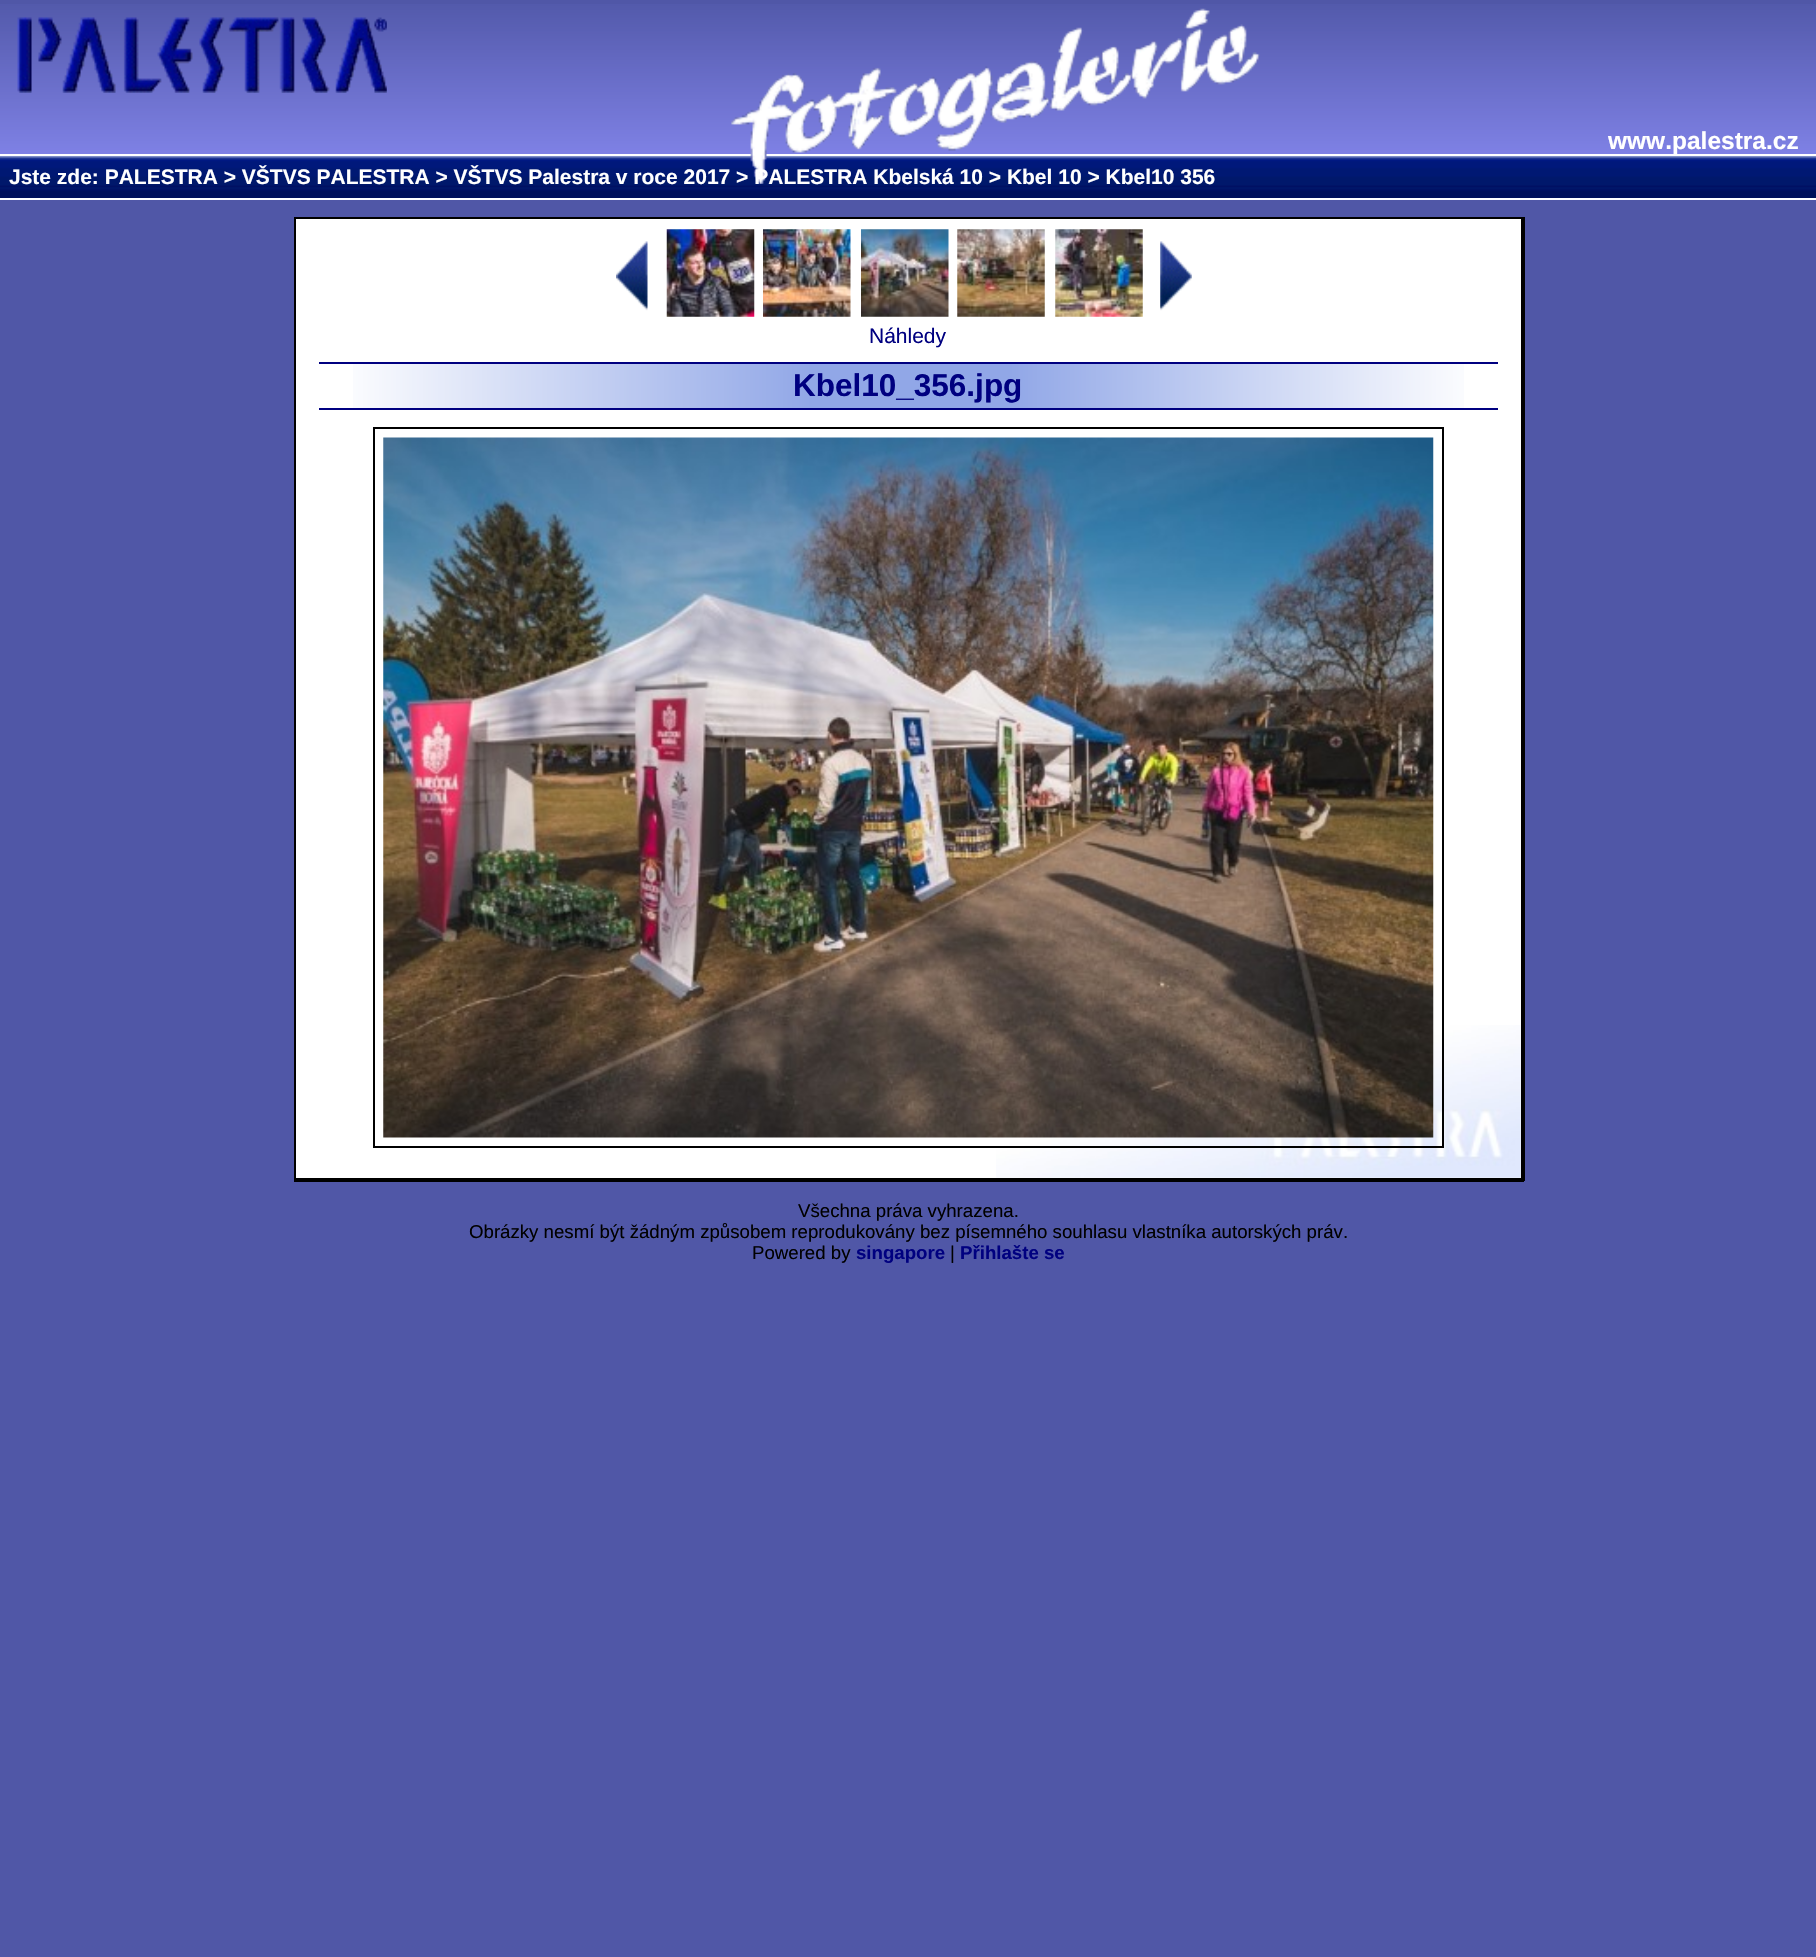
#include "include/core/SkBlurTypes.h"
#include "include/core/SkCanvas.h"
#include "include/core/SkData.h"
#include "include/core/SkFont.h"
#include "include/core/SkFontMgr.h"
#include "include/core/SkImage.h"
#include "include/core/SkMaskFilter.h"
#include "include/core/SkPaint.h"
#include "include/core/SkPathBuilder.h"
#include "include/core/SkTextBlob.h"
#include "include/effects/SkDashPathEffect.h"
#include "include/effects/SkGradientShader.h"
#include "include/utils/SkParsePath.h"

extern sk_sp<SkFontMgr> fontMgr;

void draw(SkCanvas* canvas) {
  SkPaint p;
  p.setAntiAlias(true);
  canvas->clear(SkColorSetRGB(80, 87, 167));
  canvas->drawImageRect(SkImages::DeferredFromEncodedData(SkData::MakeFromFileName("images/1.png")), SkRect::MakeLTRB(0, 4, 1816, 154), SkSamplingOptions());
  canvas->drawImageRect(SkImages::DeferredFromEncodedData(SkData::MakeFromFileName("images/2.png")), SkRect::MakeLTRB(17, 17, 387, 93), SkSamplingOptions());
  canvas->drawImageRect(SkImages::DeferredFromEncodedData(SkData::MakeFromFileName("images/4.png")), SkRect::MakeLTRB(0, 156, 1816, 198), SkSamplingOptions());
  p.setColor(SK_ColorWHITE);
  canvas->drawRect(SkRect::MakeLTRB(0, 154, 1816, 156), p);
  canvas->drawImageRect(SkImages::DeferredFromEncodedData(SkData::MakeFromFileName("images/3.png")), SkRect::MakeLTRB(731, 8, 1260, 184), SkSamplingOptions());
  canvas->drawRect(SkRect::MakeLTRB(0, 198, 1816, 200), p);
  canvas->drawRect(SkRect::MakeLTRB(296, 219, 1521, 1178), p);
  canvas->drawImageRect(SkImages::DeferredFromEncodedData(SkData::MakeFromFileName("images/5.png")), SkRect::MakeLTRB(996, 1025, 1521, 1178), SkSamplingOptions());
  p.setColor(SK_ColorBLACK);
  canvas->drawRect(SkRect::MakeLTRB(294, 217, 1524, 219), p);
  canvas->drawRect(SkRect::MakeLTRB(1521, 217, 1525, 1181), p);
  canvas->drawRect(SkRect::MakeLTRB(294, 1178, 1524, 1182), p);
  canvas->drawRect(SkRect::MakeLTRB(294, 217, 296, 1181), p);
  canvas->drawImageRect(SkImages::DeferredFromEncodedData(SkData::MakeFromFileName("images/6.png")), SkRect::MakeLTRB(616, 241, 648, 311), SkSamplingOptions());
  canvas->drawImageRect(SkImages::DeferredFromEncodedData(SkData::MakeFromFileName("images/7.png")), SkRect::MakeLTRB(666, 229, 755, 317), SkSamplingOptions());
  canvas->drawImageRect(SkImages::DeferredFromEncodedData(SkData::MakeFromFileName("images/8.png")), SkRect::MakeLTRB(763, 229, 851, 317), SkSamplingOptions());
  canvas->drawImageRect(SkImages::DeferredFromEncodedData(SkData::MakeFromFileName("images/9.png")), SkRect::MakeLTRB(861, 229, 949, 317), SkSamplingOptions());
  canvas->drawImageRect(SkImages::DeferredFromEncodedData(SkData::MakeFromFileName("images/10.png")), SkRect::MakeLTRB(957, 229, 1045, 317), SkSamplingOptions());
  canvas->drawImageRect(SkImages::DeferredFromEncodedData(SkData::MakeFromFileName("images/11.png")), SkRect::MakeLTRB(1055, 229, 1143, 317), SkSamplingOptions());
  canvas->drawImageRect(SkImages::DeferredFromEncodedData(SkData::MakeFromFileName("images/12.png")), SkRect::MakeLTRB(1160, 241, 1192, 311), SkSamplingOptions());
  canvas->drawImageRect(SkImages::DeferredFromEncodedData(SkData::MakeFromFileName("images/13.png")), SkRect::MakeLTRB(353, 364, 1464, 408), SkSamplingOptions());
  p.setColor(SkColorSetRGB(0, 0, 128));
  canvas->drawRect(SkRect::MakeLTRB(319, 362, 1498, 364), p);
  canvas->drawRect(SkRect::MakeLTRB(319, 408, 1498, 410), p);
  p.setStyle(SkPaint::kStroke_Style);
  p.setStrokeWidth(2);
  p.setColor(SK_ColorBLACK);
  canvas->drawRect(SkRect::MakeLTRB(374, 428, 1443, 1147), p);
  canvas->drawImageRect(SkImages::DeferredFromEncodedData(SkData::MakeFromFileName("images/14.png")), SkRect::MakeLTRB(383, 437, 1434, 1138), SkSamplingOptions());
  SkFont font1(fontMgr->matchFamilyStyle("Liberation Sans", SkFontStyle::Bold()), 24.5f);
  font1.setSubpixel(true);
  p.setStyle(SkPaint::kFill_Style);
  p.setColor(SK_ColorWHITE);
  canvas->drawString("www.palestra.cz", 1608, 149, font1, p);
  SkFont font2(fontMgr->matchFamilyStyle("Liberation Sans", SkFontStyle::Bold()), 21);
  font2.setSubpixel(true);
  canvas->drawString("Jste zde: PALESTRA > VŠTVS PALESTRA > VŠTVS Palestra v roce 2017 > PALESTRA Kbelská 10 > Kbel 10 > Kbel10 356", 9, 184, font2, p);
  SkFont font3(fontMgr->matchFamilyStyle("Liberation Sans", SkFontStyle::Normal()), 21);
  font3.setSubpixel(true);
  p.setColor(SkColorSetRGB(0, 0, 128));
  canvas->drawString("Náhledy", 869, 343, font3, p);
  SkFont font4(fontMgr->matchFamilyStyle("Liberation Sans", SkFontStyle::Bold()), 31.5f);
  font4.setSubpixel(true);
  canvas->drawString("Kbel10_356.jpg", 793, 396, font4, p);
  SkFont font5(fontMgr->matchFamilyStyle("Liberation Sans", SkFontStyle::Normal()), 18.65f);
  font5.setSubpixel(true);
  p.setColor(SK_ColorBLACK);
  canvas->drawString("Všechna práva vyhrazena.", 798, 1217, font5, p);
  canvas->drawString("Obrázky nesmí být žádným způsobem reprodukovány bez písemného souhlasu vlastníka autorských práv.", 469, 1238, font5, p);
  canvas->drawString("Powered by", 752, 1259, font5, p);
  SkFont font6(fontMgr->matchFamilyStyle("Liberation Sans", SkFontStyle::Bold()), 18.65f);
  font6.setSubpixel(true);
  p.setColor(SkColorSetRGB(0, 0, 128));
  canvas->drawString("singapore", 856, 1259, font6, p);
  p.setColor(SK_ColorBLACK);
  canvas->drawString("|", 950, 1259, font5, p);
  p.setColor(SkColorSetRGB(0, 0, 128));
  canvas->drawString("Přihlašte se", 960, 1259, font6, p);
}
